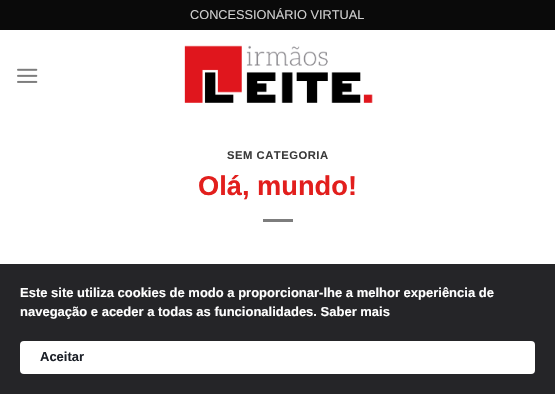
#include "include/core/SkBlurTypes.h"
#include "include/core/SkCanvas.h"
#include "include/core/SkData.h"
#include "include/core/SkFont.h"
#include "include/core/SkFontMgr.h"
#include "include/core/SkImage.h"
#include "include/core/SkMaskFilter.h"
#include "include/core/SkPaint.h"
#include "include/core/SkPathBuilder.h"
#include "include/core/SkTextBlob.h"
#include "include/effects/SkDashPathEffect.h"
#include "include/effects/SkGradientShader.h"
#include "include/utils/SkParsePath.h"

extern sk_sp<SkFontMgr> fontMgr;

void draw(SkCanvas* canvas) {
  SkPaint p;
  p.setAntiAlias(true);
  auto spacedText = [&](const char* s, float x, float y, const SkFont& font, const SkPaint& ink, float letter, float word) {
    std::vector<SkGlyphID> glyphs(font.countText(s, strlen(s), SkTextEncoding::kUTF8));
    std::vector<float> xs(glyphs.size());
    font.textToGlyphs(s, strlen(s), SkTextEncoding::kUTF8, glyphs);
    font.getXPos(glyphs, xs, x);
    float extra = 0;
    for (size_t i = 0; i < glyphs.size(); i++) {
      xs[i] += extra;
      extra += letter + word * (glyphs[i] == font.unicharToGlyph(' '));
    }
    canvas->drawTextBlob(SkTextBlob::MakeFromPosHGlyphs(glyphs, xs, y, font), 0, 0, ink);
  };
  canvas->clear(SK_ColorWHITE);
  p.setColor(SkColorSetRGB(10, 10, 10));
  canvas->drawRect(SkRect::MakeLTRB(0, 0, 555, 30), p);
  canvas->drawImageRect(SkImages::DeferredFromEncodedData(SkData::MakeFromFileName("images/1.png")), SkRect::MakeLTRB(17, 68, 38, 83), SkSamplingOptions());
  canvas->drawImageRect(SkImages::DeferredFromEncodedData(SkData::MakeFromFileName("images/2.png")), SkRect::MakeLTRB(184, 45, 373, 103), SkSamplingOptions());
  p.setColor(SkColorSetRGB(125, 125, 125));
  canvas->drawRect(SkRect::MakeLTRB(263, 219, 293, 222), p);
  p.setColor(SkColorSetRGB(37, 37, 40));
  canvas->drawRect(SkRect::MakeLTRB(0, 264, 555, 394), p);
  p.setColor(SK_ColorWHITE);
  canvas->drawRoundRect(SkRect::MakeLTRB(20, 341, 535, 374), 4, 4, p);
  SkFont font1(fontMgr->matchFamilyStyle("Liberation Sans", SkFontStyle::Normal()), 12.75f);
  font1.setSubpixel(true);
  p.setColor(SkColorSetRGB(206, 206, 206));
  canvas->drawString("CONCESSIONÁRIO VIRTUAL", 190, 19, font1, p);
  SkFont font2(fontMgr->matchFamilyStyle("Liberation Sans", SkFontStyle::Bold()), 11.25f);
  font2.setSubpixel(true);
  p.setColor(SkColorSetRGB(59, 59, 59));
  spacedText("SEM CATEGORIA", 227, 159, font2, p, 0.5f, 0);
  SkFont font3(fontMgr->matchFamilyStyle("Liberation Sans", SkFontStyle::Bold()), 27.25f);
  font3.setSubpixel(true);
  p.setColor(SkColorSetRGB(226, 31, 29));
  canvas->drawString("Olá, mundo!", 198, 195, font3, p);
  SkFont font4(fontMgr->matchFamilyStyle("Liberation Sans", SkFontStyle::Bold()), 13);
  font4.setSubpixel(true);
  p.setColor(SK_ColorWHITE);
  canvas->drawString("Este site utiliza cookies de modo a proporcionar-lhe a melhor experiência de", 20, 297, font4, p);
  canvas->drawString("navegação e aceder a todas as funcionalidades. Saber mais", 20, 316, font4, p);
  p.setColor(SkColorSetRGB(29, 33, 41));
  canvas->drawString("Aceitar", 40, 361, font4, p);
}
